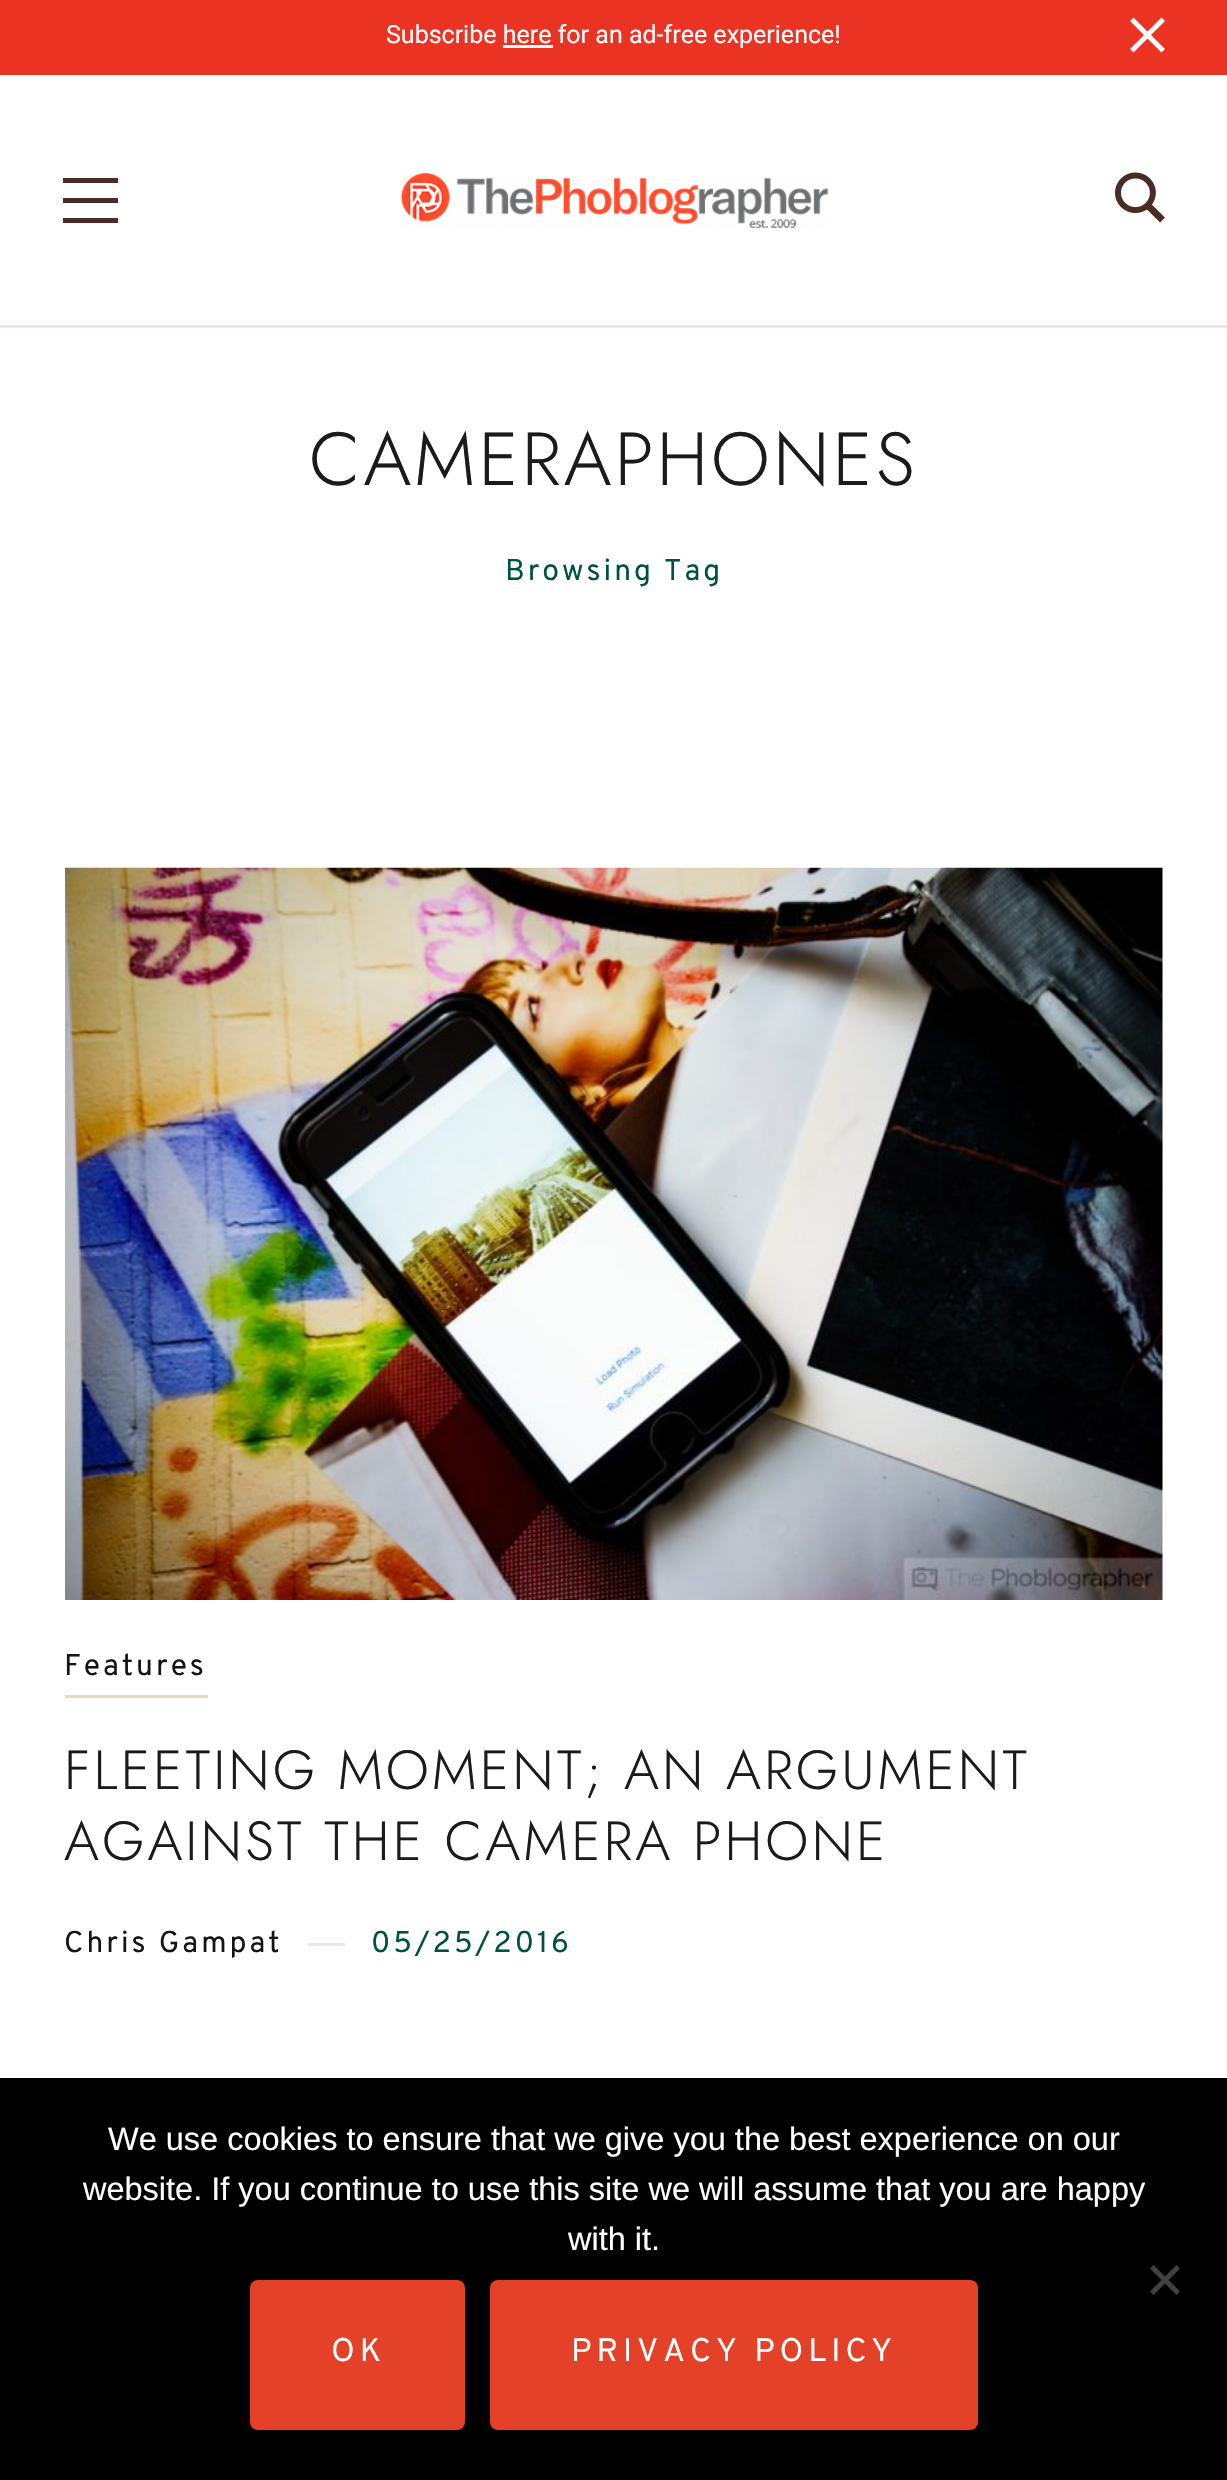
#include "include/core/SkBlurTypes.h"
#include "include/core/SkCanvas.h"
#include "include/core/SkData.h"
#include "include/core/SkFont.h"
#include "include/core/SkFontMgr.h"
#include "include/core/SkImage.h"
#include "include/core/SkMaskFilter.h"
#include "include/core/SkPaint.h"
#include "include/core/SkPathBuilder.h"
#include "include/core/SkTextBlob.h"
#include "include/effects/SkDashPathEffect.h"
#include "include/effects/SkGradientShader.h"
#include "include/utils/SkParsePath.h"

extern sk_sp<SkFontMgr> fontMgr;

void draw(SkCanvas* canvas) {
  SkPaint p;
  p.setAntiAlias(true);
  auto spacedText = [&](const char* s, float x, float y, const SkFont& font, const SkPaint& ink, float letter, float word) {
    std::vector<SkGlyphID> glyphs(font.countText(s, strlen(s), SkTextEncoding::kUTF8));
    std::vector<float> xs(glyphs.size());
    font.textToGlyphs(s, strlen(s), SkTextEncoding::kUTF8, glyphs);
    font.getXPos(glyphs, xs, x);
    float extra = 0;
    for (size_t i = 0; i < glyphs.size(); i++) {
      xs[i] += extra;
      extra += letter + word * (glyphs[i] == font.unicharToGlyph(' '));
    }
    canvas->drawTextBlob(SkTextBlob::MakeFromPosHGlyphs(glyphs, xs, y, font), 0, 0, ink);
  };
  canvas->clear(SK_ColorWHITE);
  p.setColor(SkColorSetRGB(235, 51, 35));
  canvas->drawRect(SkRect::MakeLTRB(0, 0, 1227, 75), p);
  p.setColor(SK_ColorWHITE);
  canvas->drawRect(SkRect::MakeLTRB(503, 45, 553, 48), p);
  canvas->drawPath(SkPathBuilder().moveTo(1165, 21).lineTo(1161.5f, 17.5f).lineTo(1147.5f, 31.5f).lineTo(1133.5f, 17.5f).lineTo(1130, 21).lineTo(1144, 35).lineTo(1130, 49).lineTo(1133.5f, 52.5f).lineTo(1147.5f, 38.5f).lineTo(1161.5f, 52.5f).lineTo(1165, 49).lineTo(1151, 35).close().detach(), p);
  p.setColor(SkColorSetRGB(238, 230, 226));
  canvas->drawRect(SkRect::MakeLTRB(0, 325, 1227, 328), p);
  p.setColor(SkColorSetRGB(73, 44, 35));
  canvas->drawRect(SkRect::MakeLTRB(63, 178, 118, 183), p);
  canvas->drawRect(SkRect::MakeLTRB(63, 218, 118, 223), p);
  canvas->drawRect(SkRect::MakeLTRB(63, 198, 118, 203), p);
  canvas->drawImageRect(SkImages::DeferredFromEncodedData(SkData::MakeFromFileName("images/1.png")), SkRect::MakeLTRB(400, 173, 829, 229), SkSamplingOptions());
  canvas->drawImageRect(SkImages::DeferredFromEncodedData(SkData::MakeFromFileName("images/2.png")), SkRect::MakeLTRB(1115, 172, 1165, 223), SkSamplingOptions());
  canvas->drawImageRect(SkImages::DeferredFromEncodedData(SkData::MakeFromFileName("images/3.png")), SkRect::MakeLTRB(65, 867, 1163, 1600), SkSamplingOptions());
  p.setColor(SkColorSetRGB(229, 221, 179));
  canvas->drawRect(SkRect::MakeLTRB(65, 1695, 208, 1698), p);
  p.setColor(SkColorSetRGB(238, 230, 226));
  canvas->drawRect(SkRect::MakeLTRB(308, 1943, 345, 1946), p);
  p.setColor(SK_ColorBLACK);
  canvas->drawRect(SkRect::MakeLTRB(0, 2078, 1227, 2480), p);
  p.setColor(SkColorSetRGB(64, 64, 64));
  canvas->drawPath(SkPathBuilder().moveTo(1176.5f, 2265).lineTo(1180, 2268.5f).lineTo(1153.5f, 2295).lineTo(1150, 2291.5f).close().detach(), p);
  canvas->drawPath(SkPathBuilder().moveTo(1150, 2268.5f).lineTo(1153.5f, 2265).lineTo(1180, 2291.5f).lineTo(1176.5f, 2295).close().detach(), p);
  p.setColor(SkColorSetRGB(227, 66, 40));
  canvas->drawRoundRect(SkRect::MakeLTRB(250, 2280, 465, 2430), 8, 8, p);
  canvas->drawRoundRect(SkRect::MakeLTRB(490, 2280, 978, 2430), 8, 8, p);
  SkFont font1(fontMgr->matchFamilyStyle("Roboto", SkFontStyle::Normal()), 25);
  font1.setSubpixel(true);
  p.setColor(SK_ColorWHITE);
  canvas->drawString("Subscribe here for an ad-free experience!", 386, 43, font1, p);
  SkFont font2(fontMgr->matchFamilyStyle("Jost", SkFontStyle(300, SkFontStyle::kNormal_Width, SkFontStyle::kUpright_Slant)), 75);
  font2.setSubpixel(true);
  p.setColor(SkColorSetRGB(27, 27, 27));
  spacedText("CAMERAPHONES", 309, 485, font2, p, 3, 0);
  SkFont font3(fontMgr->matchFamilyStyle("Overpass", SkFontStyle::Normal()), 30);
  font3.setSubpixel(true);
  p.setColor(SkColorSetRGB(0, 82, 64));
  spacedText("Browsing Tag", 505, 580, font3, p, 3, 0);
  p.setColor(SkColorSetRGB(18, 20, 22));
  spacedText("Features", 64, 1675, font3, p, 3, 0);
  SkFont font4(fontMgr->matchFamilyStyle("Jost", SkFontStyle(300, SkFontStyle::kNormal_Width, SkFontStyle::kUpright_Slant)), 55);
  font4.setSubpixel(true);
  p.setColor(SkColorSetRGB(27, 27, 27));
  spacedText("FLEETING MOMENT; AN ARGUMENT", 64, 1789, font4, p, 3, 0);
  spacedText("AGAINST THE CAMERA PHONE", 64, 1860, font4, p, 3, 0);
  p.setColor(SkColorSetRGB(18, 20, 22));
  spacedText("Chris Gampat", 64, 1952, font3, p, 3, 0);
  p.setColor(SkColorSetRGB(0, 82, 64));
  spacedText("05/25/2016", 371, 1952, font3, p, 3, 0);
  SkFont font5(fontMgr->matchFamilyStyle("Liberation Sans", SkFontStyle::Normal()), 32.5f);
  font5.setSubpixel(true);
  p.setColor(SK_ColorWHITE);
  canvas->drawString("We use cookies to ensure that we give you the best experience on our", 108, 2150, font5, p);
  canvas->drawString("website. If you continue to use this site we will assume that you are happy", 83, 2200, font5, p);
  canvas->drawString("with it.", 568, 2250, font5, p);
  SkFont font6(fontMgr->matchFamilyStyle("Overpass", SkFontStyle::Normal()), 32.5f);
  font6.setSubpixel(true);
  spacedText("OK", 331, 2361, font6, p, 4.9f, 0);
  spacedText("PRIVACY POLICY", 571, 2361, font6, p, 4.9f, 0);
}
